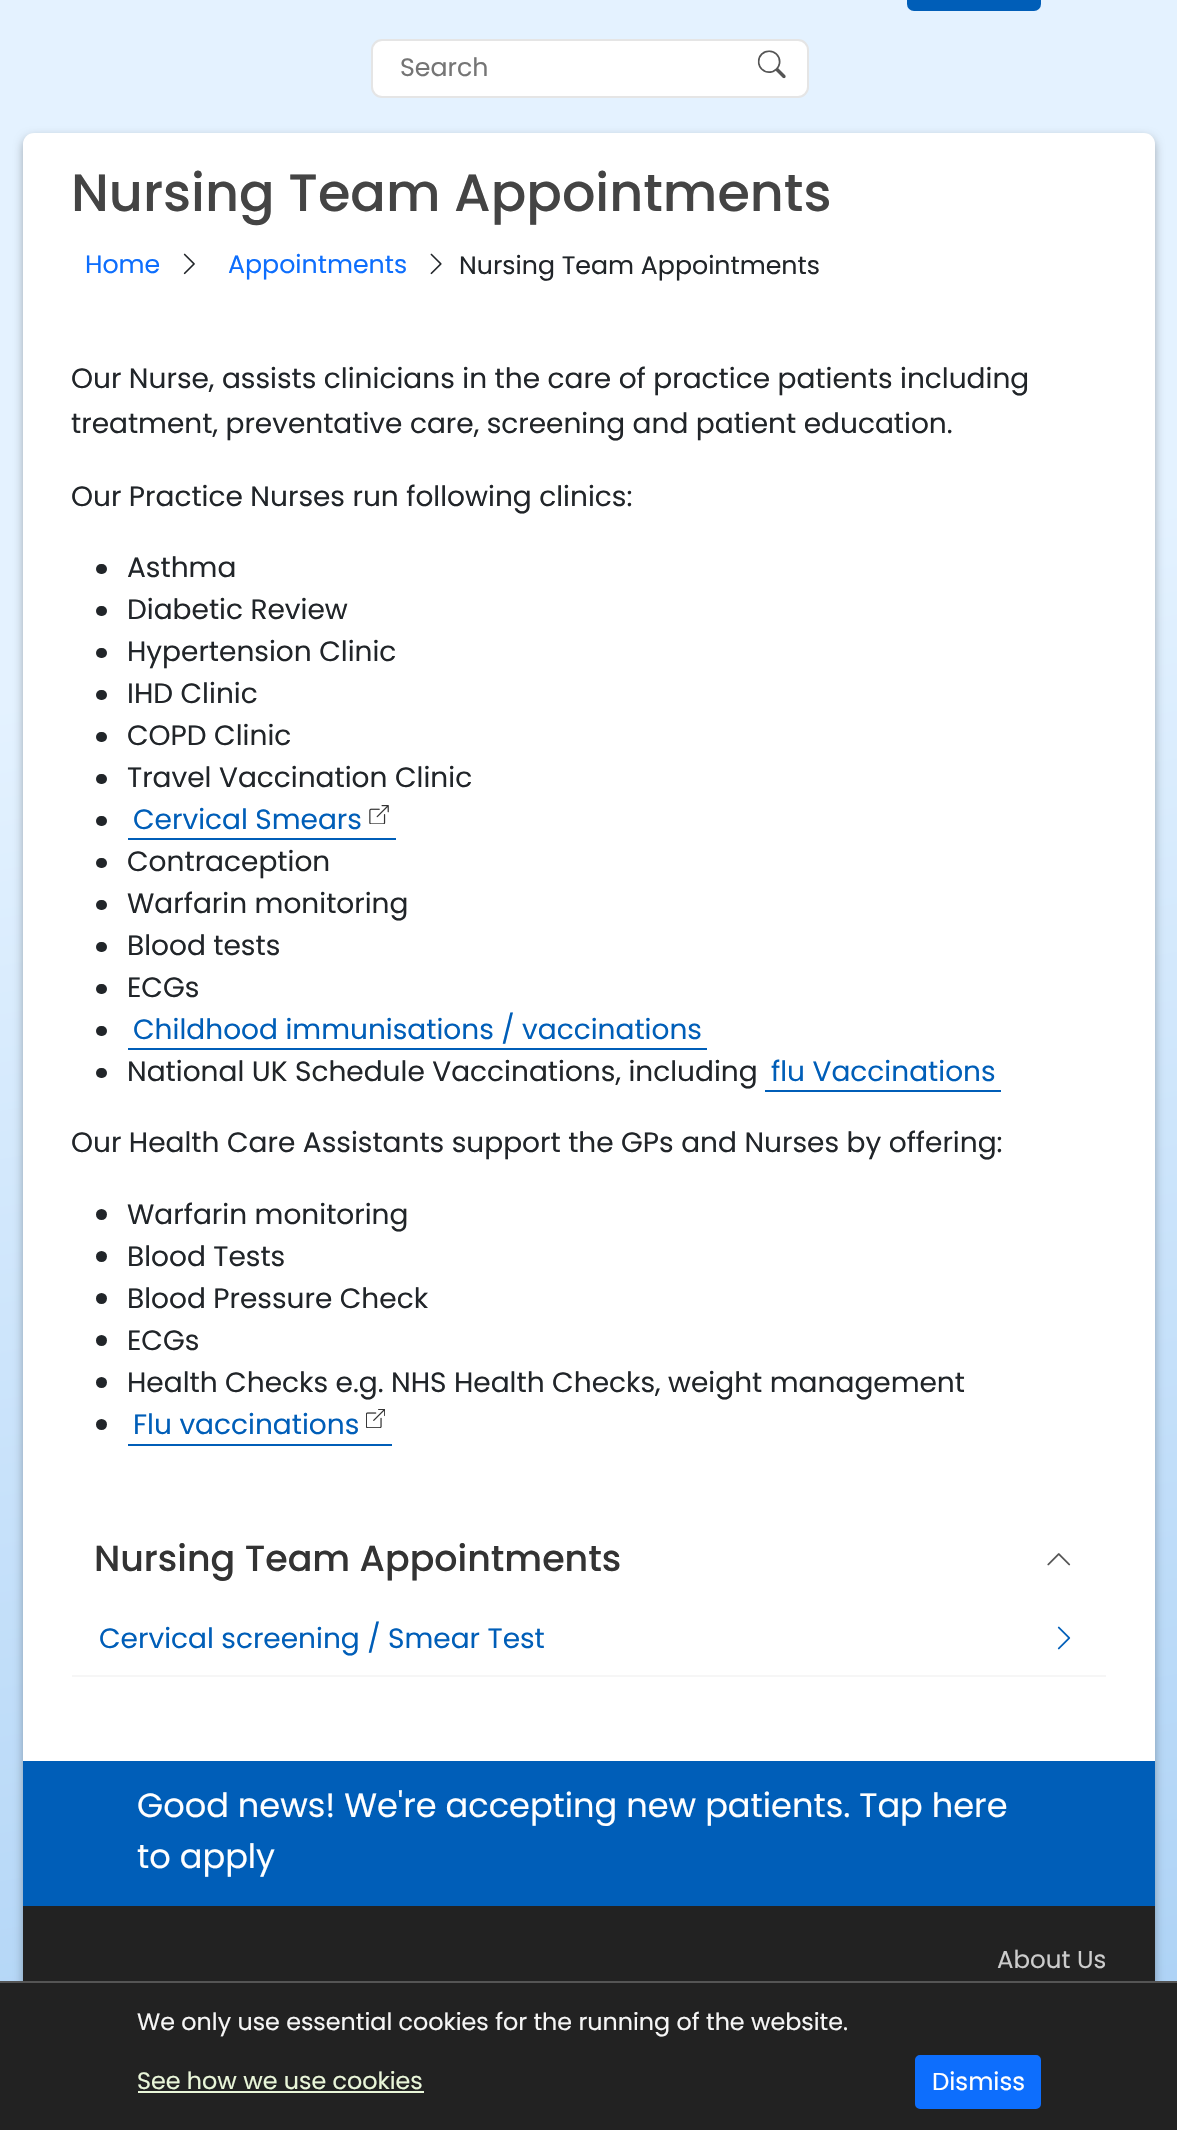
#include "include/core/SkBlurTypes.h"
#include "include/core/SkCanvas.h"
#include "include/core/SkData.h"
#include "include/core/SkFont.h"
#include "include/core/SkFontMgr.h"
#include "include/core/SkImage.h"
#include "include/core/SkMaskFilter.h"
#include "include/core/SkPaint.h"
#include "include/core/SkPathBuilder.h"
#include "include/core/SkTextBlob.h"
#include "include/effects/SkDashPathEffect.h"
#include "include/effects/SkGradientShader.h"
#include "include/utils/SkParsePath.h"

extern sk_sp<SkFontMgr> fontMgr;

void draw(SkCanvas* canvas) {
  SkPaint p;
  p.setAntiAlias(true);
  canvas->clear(SK_ColorWHITE);
  {
    const SkColor colors[] = {SkColorSetRGB(228, 242, 255), SkColorSetRGB(169, 208, 245)};
    const float stops[] = {0.3f, 1};
    const SkPoint ends[] = {{389, -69}, {789, 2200}};
    p.setShader(SkGradientShader::MakeLinear(ends, colors, stops, 2, SkTileMode::kClamp));
    p.setAlpha(255);
  }
  canvas->drawRect(SkRect::MakeLTRB(0, 0, 1177, 1981), p);
  p.setShader(nullptr);
  p.setColor(SkColorSetRGB(0, 94, 184));
  canvas->drawRoundRect(SkRect::MakeLTRB(907, -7, 1041, 11), 7, 7, p);
  p.setColor(SK_ColorWHITE);
  canvas->drawRoundRect(SkRect::MakeLTRB(372, 40, 808, 97), 10, 10, p);
  p.setStyle(SkPaint::kStroke_Style);
  p.setStrokeWidth(2);
  p.setColor(SkColorSetRGB(229, 229, 229));
  canvas->drawRoundRect(SkRect::MakeLTRB(372, 40, 808, 97), 10, 10, p);
  canvas->drawImageRect(SkImages::DeferredFromEncodedData(SkData::MakeFromFileName("images/1.png")), SkRect::MakeLTRB(757, 50, 786, 79), SkSamplingOptions());
  p.setStyle(SkPaint::kFill_Style);
  p.setColor(SkColorSetARGB(77, 0, 0, 0));
  p.setMaskFilter(SkMaskFilter::MakeBlur(kNormal_SkBlurStyle, 5));
  canvas->drawRoundRect(SkRect::MakeLTRB(23, 137, 1155, 2126), 11, 11, p);
  p.setMaskFilter(nullptr);
  p.setColor(SK_ColorWHITE);
  canvas->drawRoundRect(SkRect::MakeLTRB(23, 133, 1155, 2123), 11, 11, p);
  canvas->drawImageRect(SkImages::DeferredFromEncodedData(SkData::MakeFromFileName("images/2.png")), SkRect::MakeLTRB(183, 253, 195, 275), SkSamplingOptions());
  canvas->drawImageRect(SkImages::DeferredFromEncodedData(SkData::MakeFromFileName("images/3.png")), SkRect::MakeLTRB(430, 253, 442, 275), SkSamplingOptions());
  p.setColor(SkColorSetRGB(33, 37, 41));
  canvas->drawRoundRect(SkRect::MakeLTRB(96, 564, 107, 574), 5, 5, p);
  canvas->drawRoundRect(SkRect::MakeLTRB(96, 606, 107, 616), 5, 5, p);
  canvas->drawRoundRect(SkRect::MakeLTRB(96, 648, 107, 658), 5, 5, p);
  canvas->drawRoundRect(SkRect::MakeLTRB(96, 690, 107, 700), 5, 5, p);
  canvas->drawRoundRect(SkRect::MakeLTRB(96, 732, 107, 742), 5, 5, p);
  canvas->drawRoundRect(SkRect::MakeLTRB(96, 774, 107, 784), 5, 5, p);
  canvas->drawRoundRect(SkRect::MakeLTRB(96, 816, 107, 826), 5, 5, p);
  p.setColor(SkColorSetRGB(0, 94, 184));
  canvas->drawRect(SkRect::MakeLTRB(128, 838, 396, 840), p);
  canvas->drawImageRect(SkImages::DeferredFromEncodedData(SkData::MakeFromFileName("images/4.png")), SkRect::MakeLTRB(369, 805, 389, 824), SkSamplingOptions());
  p.setColor(SkColorSetRGB(33, 37, 41));
  canvas->drawRoundRect(SkRect::MakeLTRB(96, 858, 107, 868), 5, 5, p);
  canvas->drawRoundRect(SkRect::MakeLTRB(96, 900, 107, 910), 5, 5, p);
  canvas->drawRoundRect(SkRect::MakeLTRB(96, 942, 107, 952), 5, 5, p);
  canvas->drawRoundRect(SkRect::MakeLTRB(96, 984, 107, 994), 5, 5, p);
  canvas->drawRoundRect(SkRect::MakeLTRB(96, 1026, 107, 1036), 5, 5, p);
  p.setColor(SkColorSetRGB(0, 94, 184));
  canvas->drawRect(SkRect::MakeLTRB(128, 1048, 707, 1050), p);
  p.setColor(SkColorSetRGB(33, 37, 41));
  canvas->drawRoundRect(SkRect::MakeLTRB(96, 1068, 107, 1078), 5, 5, p);
  p.setColor(SkColorSetRGB(0, 94, 184));
  canvas->drawRect(SkRect::MakeLTRB(765, 1090, 1001, 1092), p);
  p.setColor(SkColorSetRGB(33, 37, 41));
  canvas->drawCircle(101.5f, 1214.5f, 5.5f, p);
  canvas->drawCircle(101.5f, 1256.5f, 5.5f, p);
  canvas->drawCircle(101.5f, 1298.5f, 5.5f, p);
  canvas->drawCircle(101.5f, 1340.5f, 5.5f, p);
  canvas->drawCircle(101.5f, 1382.5f, 5.5f, p);
  canvas->drawCircle(101.5f, 1424.5f, 5.5f, p);
  p.setColor(SkColorSetRGB(0, 94, 184));
  canvas->drawRect(SkRect::MakeLTRB(128, 1444, 392, 1446), p);
  canvas->drawImageRect(SkImages::DeferredFromEncodedData(SkData::MakeFromFileName("images/5.png")), SkRect::MakeLTRB(366, 1409, 385, 1428), SkSamplingOptions());
  canvas->drawImageRect(SkImages::DeferredFromEncodedData(SkData::MakeFromFileName("images/6.png")), SkRect::MakeLTRB(1047, 1553, 1071, 1566), SkSamplingOptions());
  p.setColor(SkColorSetRGB(246, 246, 246));
  canvas->drawRect(SkRect::MakeLTRB(72, 1675, 1106, 1677), p);
  canvas->drawImageRect(SkImages::DeferredFromEncodedData(SkData::MakeFromFileName("images/7.png")), SkRect::MakeLTRB(1057, 1626, 1071, 1650), SkSamplingOptions());
  p.setColor(SkColorSetRGB(34, 34, 34));
  canvas->drawRect(SkRect::MakeLTRB(23, 1906, 1155, 1981), p);
  p.setColor(SkColorSetRGB(0, 94, 184));
  canvas->drawRect(SkRect::MakeLTRB(23, 1761, 1155, 1906), p);
  p.setColor(SkColorSetRGB(34, 34, 34));
  canvas->drawRect(SkRect::MakeLTRB(0, 1983, 1177, 2130), p);
  p.setColor(SkColorSetRGB(85, 85, 85));
  canvas->drawRect(SkRect::MakeLTRB(0, 1981, 1177, 1983), p);
  p.setColor(SkColorSetRGB(233, 246, 217));
  canvas->drawRect(SkRect::MakeLTRB(138, 2091, 424, 2093), p);
  p.setColor(SkColorSetRGB(13, 110, 253));
  canvas->drawRoundRect(SkRect::MakeLTRB(916, 2056, 1040, 2108), 4, 4, p);
  p.setStyle(SkPaint::kStroke_Style);
  canvas->drawRoundRect(SkRect::MakeLTRB(916, 2056, 1040, 2108), 4, 4, p);
  SkFont font1(fontMgr->matchFamilyStyle("Poppins", SkFontStyle::Normal()), 25.25f);
  font1.setSubpixel(true);
  p.setStyle(SkPaint::kFill_Style);
  p.setColor(SkColorSetRGB(117, 117, 117));
  canvas->drawString("Search", 400, 76, font1, p);
  SkFont font2(fontMgr->matchFamilyStyle("Poppins", SkFontStyle(500, SkFontStyle::kNormal_Width, SkFontStyle::kUpright_Slant)), 52.5f);
  font2.setSubpixel(true);
  p.setColor(SkColorSetRGB(68, 68, 68));
  canvas->drawString("Nursing Team Appointments", 71, 211, font2, p);
  p.setColor(SkColorSetRGB(13, 110, 253));
  canvas->drawString("Home", 85, 273, font1, p);
  canvas->drawString("Appointments", 228, 273, font1, p);
  p.setColor(SkColorSetRGB(33, 37, 41));
  canvas->drawString("Nursing Team Appointments", 459, 274, font1, p);
  SkFont font3(fontMgr->matchFamilyStyle("Poppins", SkFontStyle::Normal()), 28);
  font3.setSubpixel(true);
  canvas->drawString("Our Nurse, assists clinicians in the care of practice patients including", 71, 388, font3, p);
  canvas->drawString("treatment, preventative care, screening and patient education.", 71, 433, font3, p);
  canvas->drawString("Our Practice Nurses run following clinics:", 71, 506, font3, p);
  canvas->drawString("Asthma", 127, 577, font3, p);
  canvas->drawString("Diabetic Review", 127, 619, font3, p);
  canvas->drawString("Hypertension Clinic", 127, 661, font3, p);
  canvas->drawString("IHD Clinic", 127, 703, font3, p);
  canvas->drawString("COPD Clinic", 127, 745, font3, p);
  canvas->drawString("Travel Vaccination Clinic", 127, 787, font3, p);
  p.setColor(SkColorSetRGB(0, 94, 184));
  canvas->drawString("Cervical Smears", 133, 829, font3, p);
  p.setColor(SkColorSetRGB(33, 37, 41));
  canvas->drawString("Contraception", 127, 871, font3, p);
  canvas->drawString("Warfarin monitoring", 127, 913, font3, p);
  canvas->drawString("Blood tests", 127, 955, font3, p);
  canvas->drawString("ECGs", 127, 997, font3, p);
  p.setColor(SkColorSetRGB(0, 94, 184));
  canvas->drawString("Childhood immunisations / vaccinations", 133, 1039, font3, p);
  p.setColor(SkColorSetRGB(33, 37, 41));
  canvas->drawString("National UK Schedule Vaccinations, including", 127, 1081, font3, p);
  p.setColor(SkColorSetRGB(0, 94, 184));
  canvas->drawString("flu Vaccinations", 771, 1081, font3, p);
  p.setColor(SkColorSetRGB(33, 37, 41));
  canvas->drawString("Our Health Care Assistants support the GPs and Nurses by offering:", 71, 1152, font3, p);
  canvas->drawString("Warfarin monitoring", 127, 1224, font3, p);
  canvas->drawString("Blood Tests", 127, 1266, font3, p);
  canvas->drawString("Blood Pressure Check", 127, 1308, font3, p);
  canvas->drawString("ECGs", 127, 1350, font3, p);
  canvas->drawString("Health Checks e.g. NHS Health Checks, weight management", 127, 1392, font3, p);
  p.setColor(SkColorSetRGB(0, 94, 184));
  canvas->drawString("Flu vaccinations", 133, 1434, font3, p);
  SkFont font4(fontMgr->matchFamilyStyle("Poppins", SkFontStyle(500, SkFontStyle::kNormal_Width, SkFontStyle::kUpright_Slant)), 36.4f);
  font4.setSubpixel(true);
  p.setColor(SkColorSetRGB(51, 51, 51));
  canvas->drawString("Nursing Team Appointments", 94, 1571, font4, p);
  p.setColor(SkColorSetRGB(0, 94, 184));
  canvas->drawString("Cervical screening / Smear Test", 99, 1648, font3, p);
  SkFont font5(fontMgr->matchFamilyStyle("Poppins", SkFontStyle::Normal()), 33.6f);
  font5.setSubpixel(true);
  p.setColor(SK_ColorWHITE);
  canvas->drawString("Good news! We're accepting new patients. Tap here", 137, 1817, font5, p);
  canvas->drawString("to apply", 137, 1868, font5, p);
  SkFont font6(fontMgr->matchFamilyStyle("Poppins", SkFontStyle::Normal()), 24.5f);
  font6.setSubpixel(true);
  p.setColor(SkColorSetRGB(204, 204, 204));
  canvas->drawString("About Us", 997, 1968, font6, p);
  SkFont font7(fontMgr->matchFamilyStyle("Poppins", SkFontStyle::Normal()), 23.8f);
  font7.setSubpixel(true);
  p.setColor(SkColorSetRGB(246, 246, 246));
  canvas->drawString("We only use essential cookies for the running of the website.", 137, 2030, font7, p);
  p.setColor(SkColorSetRGB(233, 246, 217));
  canvas->drawString("See how we use cookies", 137, 2089, font7, p);
  p.setColor(SK_ColorWHITE);
  canvas->drawString("Dismiss", 932, 2090, font6, p);
}
